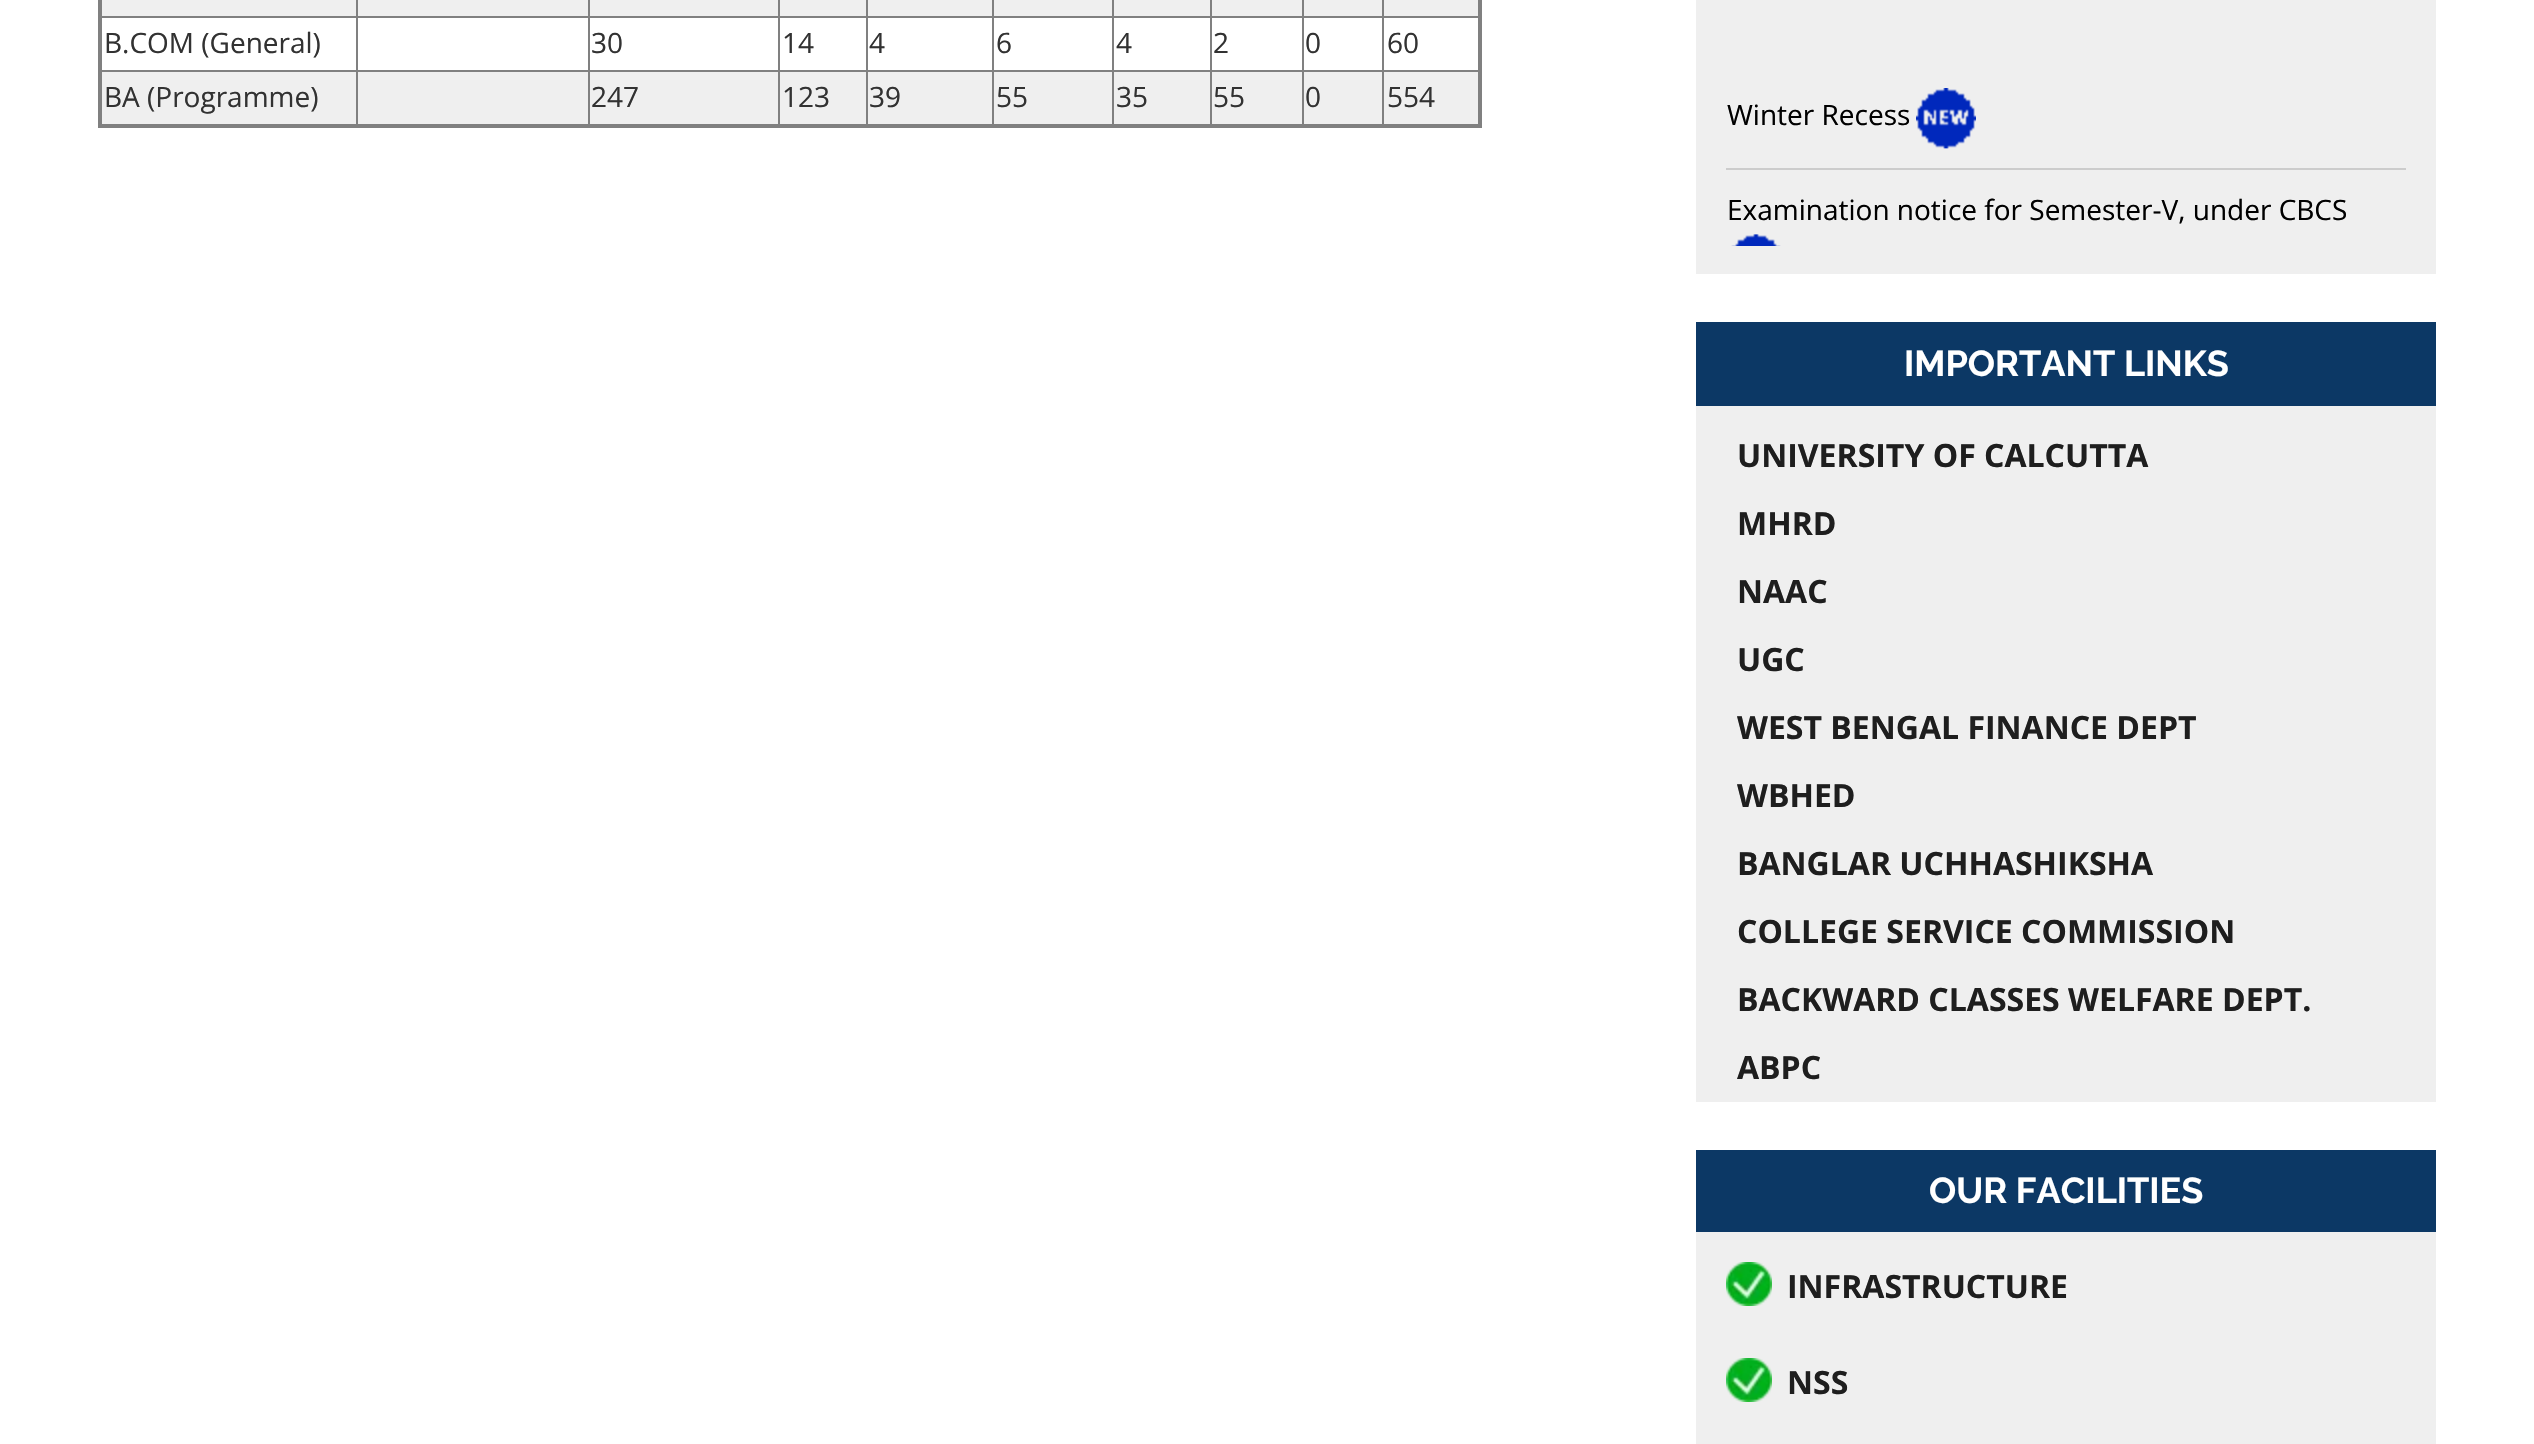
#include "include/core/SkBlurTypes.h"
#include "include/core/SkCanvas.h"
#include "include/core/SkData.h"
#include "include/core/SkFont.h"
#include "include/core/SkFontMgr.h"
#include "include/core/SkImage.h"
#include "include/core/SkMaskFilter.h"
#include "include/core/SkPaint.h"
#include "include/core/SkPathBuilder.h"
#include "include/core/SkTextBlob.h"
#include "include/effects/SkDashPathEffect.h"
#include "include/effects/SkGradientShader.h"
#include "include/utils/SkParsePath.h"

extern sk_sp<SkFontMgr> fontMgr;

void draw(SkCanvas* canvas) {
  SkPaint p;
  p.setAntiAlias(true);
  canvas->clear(SK_ColorWHITE);
  p.setColor(SkColorSetRGB(128, 128, 128));
  canvas->drawRect(SkRect::MakeLTRB(1382, 16, 1482, 18), p);
  canvas->drawRect(SkRect::MakeLTRB(1382, 70, 1482, 72), p);
  canvas->drawRect(SkRect::MakeLTRB(1478, 0, 1482, 128), p);
  p.setColor(SkColorSetRGB(239, 239, 239));
  canvas->drawRect(SkRect::MakeLTRB(102, 72, 1478, 124), p);
  p.setColor(SkColorSetRGB(128, 128, 128));
  canvas->drawRect(SkRect::MakeLTRB(1382, 70, 1384, 126), p);
  canvas->drawRect(SkRect::MakeLTRB(1302, 70, 1384, 72), p);
  canvas->drawRect(SkRect::MakeLTRB(1302, 70, 1304, 126), p);
  canvas->drawRect(SkRect::MakeLTRB(1210, 70, 1304, 72), p);
  canvas->drawRect(SkRect::MakeLTRB(1210, 70, 1212, 126), p);
  canvas->drawRect(SkRect::MakeLTRB(1112, 70, 1212, 72), p);
  canvas->drawRect(SkRect::MakeLTRB(1112, 70, 1114, 126), p);
  canvas->drawRect(SkRect::MakeLTRB(992, 70, 1114, 72), p);
  canvas->drawRect(SkRect::MakeLTRB(992, 70, 994, 126), p);
  canvas->drawRect(SkRect::MakeLTRB(866, 70, 994, 72), p);
  canvas->drawRect(SkRect::MakeLTRB(866, 70, 868, 126), p);
  canvas->drawRect(SkRect::MakeLTRB(778, 70, 868, 72), p);
  canvas->drawRect(SkRect::MakeLTRB(778, 70, 780, 126), p);
  canvas->drawRect(SkRect::MakeLTRB(588, 70, 780, 72), p);
  canvas->drawRect(SkRect::MakeLTRB(588, 70, 590, 126), p);
  canvas->drawRect(SkRect::MakeLTRB(356, 70, 590, 72), p);
  canvas->drawRect(SkRect::MakeLTRB(356, 70, 358, 126), p);
  canvas->drawRect(SkRect::MakeLTRB(98, 124, 1482, 128), p);
  canvas->drawRect(SkRect::MakeLTRB(1382, 16, 1384, 72), p);
  canvas->drawRect(SkRect::MakeLTRB(1302, 16, 1384, 18), p);
  canvas->drawRect(SkRect::MakeLTRB(1302, 16, 1304, 72), p);
  canvas->drawRect(SkRect::MakeLTRB(1210, 16, 1304, 18), p);
  canvas->drawRect(SkRect::MakeLTRB(1210, 16, 1212, 72), p);
  canvas->drawRect(SkRect::MakeLTRB(1112, 16, 1212, 18), p);
  canvas->drawRect(SkRect::MakeLTRB(1112, 16, 1114, 72), p);
  canvas->drawRect(SkRect::MakeLTRB(992, 16, 1114, 18), p);
  canvas->drawRect(SkRect::MakeLTRB(992, 16, 994, 72), p);
  canvas->drawRect(SkRect::MakeLTRB(866, 16, 994, 18), p);
  canvas->drawRect(SkRect::MakeLTRB(866, 16, 868, 72), p);
  canvas->drawRect(SkRect::MakeLTRB(778, 16, 868, 18), p);
  canvas->drawRect(SkRect::MakeLTRB(778, 16, 780, 72), p);
  canvas->drawRect(SkRect::MakeLTRB(588, 16, 780, 18), p);
  canvas->drawRect(SkRect::MakeLTRB(588, 16, 590, 72), p);
  canvas->drawRect(SkRect::MakeLTRB(356, 16, 590, 18), p);
  canvas->drawRect(SkRect::MakeLTRB(100, 70, 358, 72), p);
  canvas->drawRect(SkRect::MakeLTRB(356, 16, 358, 72), p);
  canvas->drawRect(SkRect::MakeLTRB(100, 16, 358, 18), p);
  canvas->drawRect(SkRect::MakeLTRB(98, 0, 102, 128), p);
  p.setColor(SkColorSetRGB(239, 239, 239));
  canvas->drawRect(SkRect::MakeLTRB(102, 0, 1478, 16), p);
  p.setColor(SkColorSetRGB(128, 128, 128));
  canvas->drawRect(SkRect::MakeLTRB(356, 0, 358, 18), p);
  canvas->drawRect(SkRect::MakeLTRB(588, 0, 590, 18), p);
  canvas->drawRect(SkRect::MakeLTRB(778, 0, 780, 18), p);
  canvas->drawRect(SkRect::MakeLTRB(866, 0, 868, 18), p);
  canvas->drawRect(SkRect::MakeLTRB(992, 0, 994, 18), p);
  canvas->drawRect(SkRect::MakeLTRB(1112, 0, 1114, 18), p);
  canvas->drawRect(SkRect::MakeLTRB(1210, 0, 1212, 18), p);
  canvas->drawRect(SkRect::MakeLTRB(1302, 0, 1304, 18), p);
  canvas->drawRect(SkRect::MakeLTRB(1382, 0, 1384, 18), p);
  p.setColor(SkColorSetRGB(239, 239, 239));
  canvas->drawRect(SkRect::MakeLTRB(1696, 0, 2436, 274), p);
  p.setColor(SkColorSetRGB(204, 204, 204));
  canvas->drawRect(SkRect::MakeLTRB(1726, 168, 2406, 170), p);
  canvas->drawImageRect(SkImages::DeferredFromEncodedData(SkData::MakeFromFileName("images/1.png")), SkRect::MakeLTRB(1916, 88, 1976, 149), SkSamplingOptions());
  canvas->drawImageRect(SkImages::DeferredFromEncodedData(SkData::MakeFromFileName("images/2.png")), SkRect::MakeLTRB(1731, 234, 1781, 246), SkSamplingOptions());
  p.setColor(SkColorSetRGB(239, 239, 239));
  canvas->drawRect(SkRect::MakeLTRB(1696, 406, 2436, 1102), p);
  p.setColor(SkColorSetRGB(12, 56, 101));
  canvas->drawRect(SkRect::MakeLTRB(1696, 322, 2436, 406), p);
  p.setColor(SkColorSetRGB(239, 239, 239));
  canvas->drawRect(SkRect::MakeLTRB(1696, 1232, 2436, 1444), p);
  p.setColor(SkColorSetRGB(12, 56, 101));
  canvas->drawRect(SkRect::MakeLTRB(1696, 1150, 2436, 1232), p);
  canvas->drawImageRect(SkImages::DeferredFromEncodedData(SkData::MakeFromFileName("images/3.png")), SkRect::MakeLTRB(1726, 1262, 1772, 1306), SkSamplingOptions());
  canvas->drawImageRect(SkImages::DeferredFromEncodedData(SkData::MakeFromFileName("images/3.png")), SkRect::MakeLTRB(1726, 1358, 1772, 1402), SkSamplingOptions());
  SkFont font1(fontMgr->matchFamilyStyle("Open Sans", SkFontStyle::Normal()), 28);
  font1.setSubpixel(true);
  p.setColor(SkColorSetRGB(50, 50, 50));
  canvas->drawString("B.COM (General)", 104, 53, font1, p);
  canvas->drawString("30", 591, 53, font1, p);
  canvas->drawString("14", 782, 53, font1, p);
  canvas->drawString("4", 869, 53, font1, p);
  canvas->drawString("6", 996, 53, font1, p);
  canvas->drawString("4", 1116, 53, font1, p);
  canvas->drawString("2", 1213, 53, font1, p);
  canvas->drawString("0", 1305, 53, font1, p);
  canvas->drawString("60", 1387, 53, font1, p);
  canvas->drawString("BA (Programme)", 104, 107, font1, p);
  canvas->drawString("247", 591, 107, font1, p);
  canvas->drawString("123", 782, 107, font1, p);
  canvas->drawString("39", 869, 107, font1, p);
  canvas->drawString("55", 996, 107, font1, p);
  canvas->drawString("35", 1116, 107, font1, p);
  canvas->drawString("55", 1213, 107, font1, p);
  canvas->drawString("0", 1305, 107, font1, p);
  canvas->drawString("554", 1387, 107, font1, p);
  p.setColor(SK_ColorBLACK);
  canvas->drawString("Winter Recess", 1727, 125, font1, p);
  canvas->drawString("Examination notice for Semester-V, under CBCS", 1727, 220, font1, p);
  SkFont font2(fontMgr->matchFamilyStyle("Raleway", SkFontStyle::Bold()), 36);
  font2.setSubpixel(true);
  p.setColor(SK_ColorWHITE);
  canvas->drawString("IMPORTANT LINKS", 1904, 376, font2, p);
  SkFont font3(fontMgr->matchFamilyStyle("Open Sans", SkFontStyle::Bold()), 32);
  font3.setSubpixel(true);
  p.setColor(SkColorSetRGB(30, 30, 30));
  canvas->drawString("UNIVERSITY OF CALCUTTA", 1737, 467, font3, p);
  canvas->drawString("MHRD", 1737, 535, font3, p);
  canvas->drawString("NAAC", 1737, 603, font3, p);
  canvas->drawString("UGC", 1737, 671, font3, p);
  canvas->drawString("WEST BENGAL FINANCE DEPT", 1737, 739, font3, p);
  canvas->drawString("WBHED", 1737, 807, font3, p);
  canvas->drawString("BANGLAR UCHHASHIKSHA", 1737, 875, font3, p);
  canvas->drawString("COLLEGE SERVICE COMMISSION", 1737, 943, font3, p);
  canvas->drawString("BACKWARD CLASSES WELFARE DEPT.", 1737, 1011, font3, p);
  canvas->drawString("ABPC", 1737, 1079, font3, p);
  p.setColor(SK_ColorWHITE);
  canvas->drawString("OUR FACILITIES", 1929, 1203, font2, p);
  p.setColor(SkColorSetRGB(30, 30, 30));
  canvas->drawString("INFRASTRUCTURE", 1787, 1298, font3, p);
  canvas->drawString("NSS", 1787, 1394, font3, p);
}
